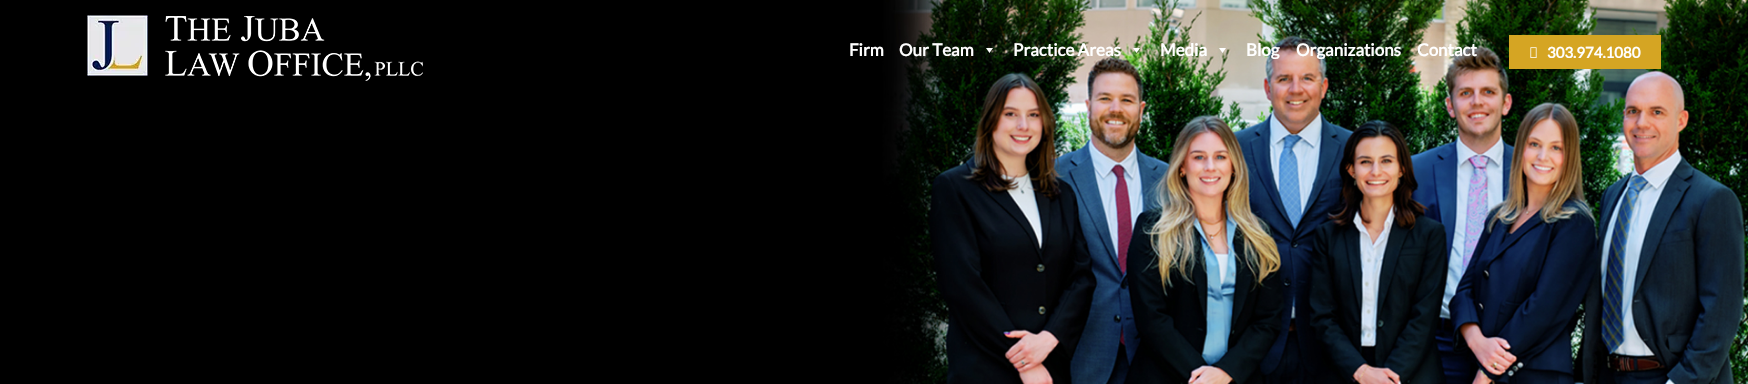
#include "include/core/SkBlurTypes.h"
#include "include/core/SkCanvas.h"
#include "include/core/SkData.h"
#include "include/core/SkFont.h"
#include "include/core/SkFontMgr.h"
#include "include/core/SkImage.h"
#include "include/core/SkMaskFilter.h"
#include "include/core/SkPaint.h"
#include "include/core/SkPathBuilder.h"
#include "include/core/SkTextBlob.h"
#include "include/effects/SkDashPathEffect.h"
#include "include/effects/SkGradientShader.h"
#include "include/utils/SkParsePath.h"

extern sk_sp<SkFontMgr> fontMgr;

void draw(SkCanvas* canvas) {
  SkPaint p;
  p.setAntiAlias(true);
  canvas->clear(SK_ColorWHITE);
  canvas->drawImageRect(SkImages::DeferredFromEncodedData(SkData::MakeFromFileName("images/1.png")), SkRect::MakeLTRB(0, 0, 1748, 384), SkSamplingOptions());
  canvas->drawImageRect(SkImages::DeferredFromEncodedData(SkData::MakeFromFileName("images/2.png")), SkRect::MakeLTRB(87, 15, 423, 81), SkSamplingOptions());
  p.setColor(SK_ColorWHITE);
  canvas->drawPath(SkPathBuilder().moveTo(993, 48).lineTo(989.5f, 53).lineTo(986, 48).close().detach(), p);
  canvas->drawPath(SkPathBuilder().moveTo(1140, 48).lineTo(1136.5f, 53).lineTo(1133, 48).close().detach(), p);
  canvas->drawPath(SkPathBuilder().moveTo(1226, 48).lineTo(1222.5f, 53).lineTo(1219, 48).close().detach(), p);
  p.setColor(SkColorSetRGB(213, 165, 35));
  canvas->drawRect(SkRect::MakeLTRB(1509, 35, 1661, 69), p);
  canvas->drawImageRect(SkImages::DeferredFromEncodedData(SkData::MakeFromFileName("images/3.png")), SkRect::MakeLTRB(1530, 47, 1537, 58), SkSamplingOptions());
  SkFont font1(fontMgr->matchFamilyStyle("Lato", SkFontStyle::Bold()), 17);
  font1.setSubpixel(true);
  p.setColor(SK_ColorWHITE);
  canvas->drawString("Firm", 849, 56, font1, p);
  canvas->drawString("Our Team", 899, 56, font1, p);
  canvas->drawString("Practice Areas", 1013, 56, font1, p);
  canvas->drawString("Media", 1160, 56, font1, p);
  canvas->drawString("Blog", 1246, 56, font1, p);
  canvas->drawString("Organizations", 1296, 56, font1, p);
  canvas->drawString("Contact", 1417, 56, font1, p);
  SkFont font2(fontMgr->matchFamilyStyle("Lato", SkFontStyle::Bold()), 15);
  font2.setSubpixel(true);
  canvas->drawString("303.974.1080", 1547, 58, font2, p);
}
